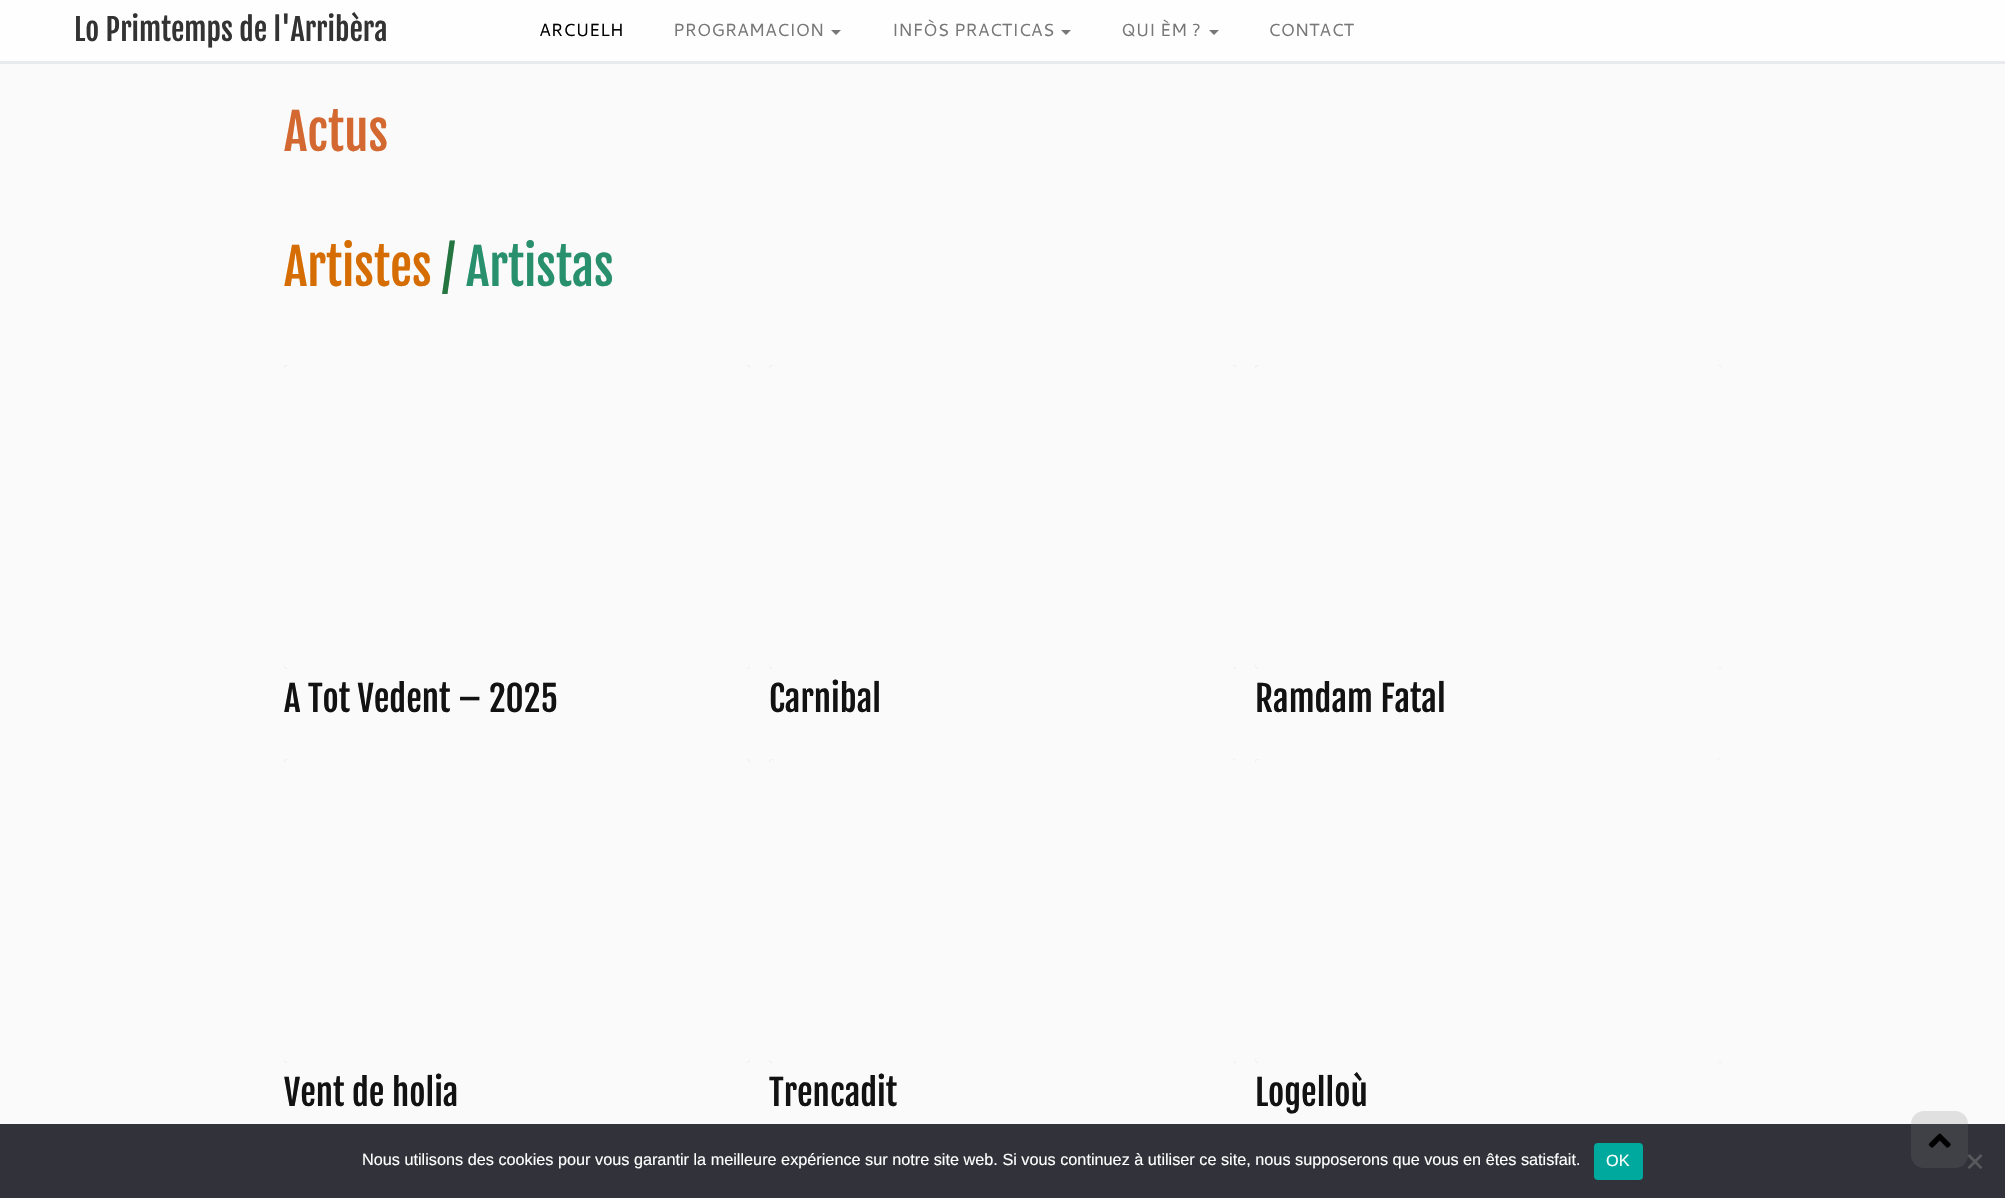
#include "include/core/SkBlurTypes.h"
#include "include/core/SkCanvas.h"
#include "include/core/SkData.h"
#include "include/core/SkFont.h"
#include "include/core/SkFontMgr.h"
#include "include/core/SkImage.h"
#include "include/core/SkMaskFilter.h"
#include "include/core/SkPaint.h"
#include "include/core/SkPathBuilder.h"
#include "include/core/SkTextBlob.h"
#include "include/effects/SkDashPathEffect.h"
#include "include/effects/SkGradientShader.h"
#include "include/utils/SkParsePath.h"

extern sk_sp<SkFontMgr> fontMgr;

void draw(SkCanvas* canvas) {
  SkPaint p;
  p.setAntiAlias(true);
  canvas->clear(SkColorSetRGB(250, 250, 250));
  p.setColor(SkColorSetRGB(254, 254, 254));
  canvas->drawRect(SkRect::MakeLTRB(0, 0, 2005, 61), p);
  p.setColor(SkColorSetRGB(233, 234, 238));
  canvas->drawRect(SkRect::MakeLTRB(0, 61, 2005, 64), p);
  p.setColor(SkColorSetRGB(119, 119, 119));
  canvas->drawPath(SkPathBuilder().moveTo(831, 30).lineTo(841, 30).lineTo(836, 35).close().detach(), p);
  canvas->drawPath(SkPathBuilder().moveTo(1061, 30).lineTo(1071, 30).lineTo(1066, 35).close().detach(), p);
  canvas->drawPath(SkPathBuilder().moveTo(1209, 30).lineTo(1219, 30).lineTo(1214, 35).close().detach(), p);
  canvas->save();
  canvas->clipRect(SkRect::MakeLTRB(284, 365, 750, 669));
  p.setStyle(SkPaint::kStroke_Style);
  p.setStrokeWidth(1);
  p.setColor(SkColorSetRGB(235, 236, 239));
  canvas->drawRoundRect(SkRect::MakeLTRB(283.5f, 364.5f, 750.5f, 669.5f), 5.5f, 5.5f, p);
  canvas->restore();
  canvas->save();
  canvas->clipRect(SkRect::MakeLTRB(769, 365, 1236, 669));
  canvas->drawRoundRect(SkRect::MakeLTRB(768.5f, 364.5f, 1237.5f, 669.5f), 5.5f, 5.5f, p);
  canvas->restore();
  canvas->save();
  canvas->clipRect(SkRect::MakeLTRB(1255, 365, 1721, 669));
  canvas->drawRoundRect(SkRect::MakeLTRB(1254.5f, 364.5f, 1722.5f, 669.5f), 5.5f, 5.5f, p);
  canvas->restore();
  canvas->save();
  canvas->clipRect(SkRect::MakeLTRB(284, 759, 750, 1063));
  canvas->drawRoundRect(SkRect::MakeLTRB(283.5f, 758.5f, 750.5f, 1063.5f), 5.5f, 5.5f, p);
  canvas->restore();
  canvas->save();
  canvas->clipRect(SkRect::MakeLTRB(769, 759, 1236, 1063));
  canvas->drawRoundRect(SkRect::MakeLTRB(768.5f, 758.5f, 1237.5f, 1063.5f), 5.5f, 5.5f, p);
  canvas->restore();
  canvas->save();
  canvas->clipRect(SkRect::MakeLTRB(1255, 759, 1721, 1063));
  canvas->drawRoundRect(SkRect::MakeLTRB(1254.5f, 758.5f, 1722.5f, 1063.5f), 5.5f, 5.5f, p);
  canvas->restore();
  p.setStyle(SkPaint::kFill_Style);
  p.setColor(SkColorSetRGB(50, 50, 58));
  canvas->drawRect(SkRect::MakeLTRB(0, 1124, 2005, 1198), p);
  p.setColor(SkColorSetRGB(0, 169, 157));
  canvas->drawRoundRect(SkRect::MakeLTRB(1594, 1143, 1643, 1180), 4, 4, p);
  p.setColor(SkColorSetRGB(89, 89, 93));
  canvas->drawPath(SkPathBuilder().moveTo(1980.5f, 1154).lineTo(1982.5f, 1156).lineTo(1969.5f, 1169).lineTo(1967.5f, 1167.5f).close().detach(), p);
  canvas->drawPath(SkPathBuilder().moveTo(1967.5f, 1156).lineTo(1969.5f, 1154).lineTo(1982.5f, 1167.5f).lineTo(1980.5f, 1169).close().detach(), p);
  p.setColor(SkColorSetARGB(51, 119, 119, 119));
  canvas->drawRoundRect(SkRect::MakeLTRB(1911, 1111, 1968, 1168), 13, 13, p);
  canvas->drawImageRect(SkImages::DeferredFromEncodedData(SkData::MakeFromFileName("images/1.png")), SkRect::MakeLTRB(1928, 1133, 1951, 1148), SkSamplingOptions());
  SkFont font1(fontMgr->matchFamilyStyle("Fjalla One", SkFontStyle::Normal()), 30);
  font1.setSubpixel(true);
  p.setColor(SkColorSetRGB(51, 51, 51));
  canvas->drawString("Lo Primtemps de l'Arribèra", 74, 41, font1, p);
  SkFont font2(fontMgr->matchFamilyStyle("Cantarell", SkFontStyle::Normal()), 17.5f);
  font2.setSubpixel(true);
  p.setColor(SK_ColorBLACK);
  canvas->drawString("ARCUELH", 539, 36, font2, p);
  p.setColor(SkColorSetRGB(119, 119, 119));
  canvas->drawString("PROGRAMACION", 673, 36, font2, p);
  canvas->drawString("INFÒS PRACTICAS", 892, 36, font2, p);
  canvas->drawString("QUI ÈM ?", 1121, 36, font2, p);
  canvas->drawString("CONTACT", 1268, 36, font2, p);
  SkFont font3(fontMgr->matchFamilyStyle("Fjalla One", SkFontStyle::Normal()), 49.5f);
  font3.setSubpixel(true);
  p.setColor(SkColorSetRGB(211, 105, 48));
  canvas->drawString("Actus", 284, 151, font3, p);
  p.setColor(SkColorSetRGB(213, 109, 2));
  canvas->drawString("Artistes", 284, 286, font3, p);
  p.setColor(SkColorSetRGB(36, 117, 64));
  canvas->drawString("/", 442, 286, font3, p);
  p.setColor(SkColorSetRGB(40, 144, 109));
  canvas->drawString("Artistas", 466, 286, font3, p);
  SkFont font4(fontMgr->matchFamilyStyle("Fjalla One", SkFontStyle::Normal()), 35);
  font4.setSubpixel(true);
  p.setColor(SkColorSetRGB(18, 18, 18));
  canvas->drawString("A Tot Vedent – 2025", 284, 712, font4, p);
  canvas->drawString("Carnibal", 769, 712, font4, p);
  canvas->drawString("Ramdam Fatal", 1255, 712, font4, p);
  canvas->drawString("Vent de holia", 284, 1106, font4, p);
  canvas->drawString("Trencadit", 769, 1106, font4, p);
  canvas->drawString("Logelloù", 1255, 1106, font4, p);
  SkFont font5(fontMgr->matchFamilyStyle("Liberation Sans", SkFontStyle::Normal()), 16.25f);
  font5.setSubpixel(true);
  p.setColor(SK_ColorWHITE);
  canvas->drawString("Nous utilisons des cookies pour vous garantir la meilleure expérience sur notre site web. Si vous continuez à utiliser ce site, nous supposerons que vous en êtes satisfait.", 362, 1165, font5, p);
  canvas->drawString("OK", 1606, 1166, font5, p);
}
